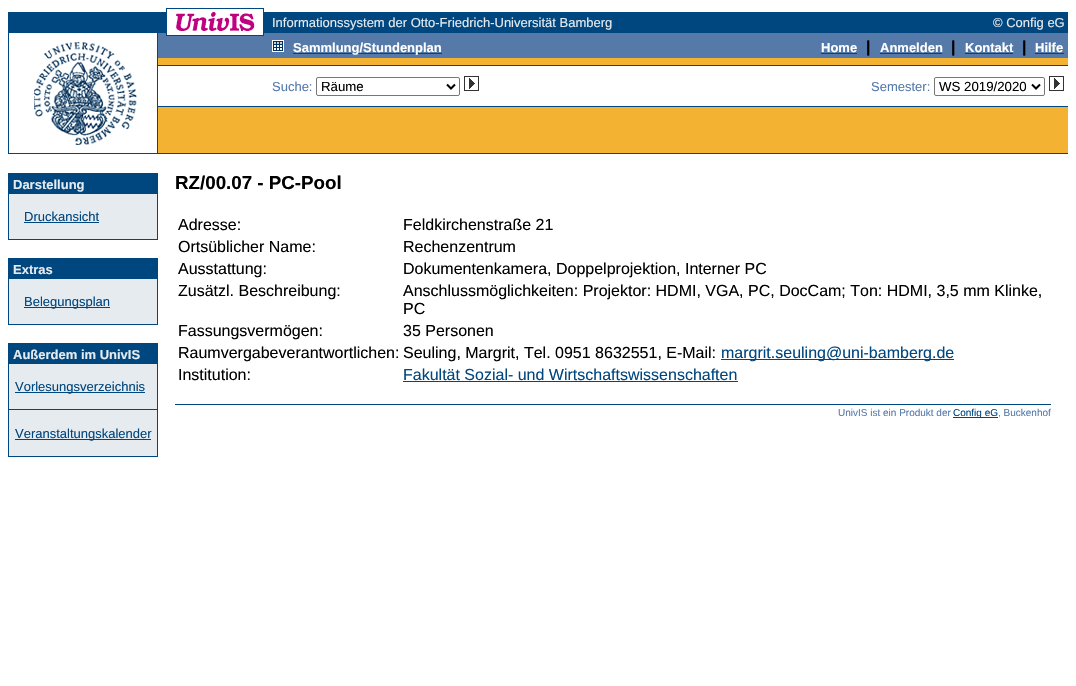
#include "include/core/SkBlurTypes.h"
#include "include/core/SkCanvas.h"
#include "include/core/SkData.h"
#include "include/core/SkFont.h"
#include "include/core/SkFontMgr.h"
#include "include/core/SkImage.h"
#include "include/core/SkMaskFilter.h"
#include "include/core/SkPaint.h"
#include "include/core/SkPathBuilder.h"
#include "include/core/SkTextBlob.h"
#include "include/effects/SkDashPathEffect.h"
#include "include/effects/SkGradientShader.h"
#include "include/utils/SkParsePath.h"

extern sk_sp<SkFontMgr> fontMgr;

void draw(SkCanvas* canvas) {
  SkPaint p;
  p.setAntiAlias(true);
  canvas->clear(SK_ColorWHITE);
  p.setColor(SkColorSetRGB(0, 70, 127));
  canvas->drawRect(SkRect::MakeLTRB(166, 8, 264, 9), p);
  canvas->drawRect(SkRect::MakeLTRB(166, 9, 167, 12), p);
  canvas->drawRect(SkRect::MakeLTRB(263, 9, 264, 32), p);
  canvas->drawRect(SkRect::MakeLTRB(8, 12, 167, 32), p);
  canvas->drawImageRect(SkImages::DeferredFromEncodedData(SkData::MakeFromFileName("images/1.png")), SkRect::MakeLTRB(176, 12, 255, 31), SkSamplingOptions());
  canvas->drawRect(SkRect::MakeLTRB(264, 12, 1068, 32), p);
  canvas->drawRect(SkRect::MakeLTRB(8, 32, 1068, 33), p);
  p.setColor(SK_ColorWHITE);
  canvas->drawRect(SkRect::MakeLTRB(167, 32, 263, 33), p);
  p.setColor(SkColorSetRGB(0, 70, 127));
  canvas->drawRect(SkRect::MakeLTRB(8, 33, 9, 154), p);
  canvas->drawImageRect(SkImages::DeferredFromEncodedData(SkData::MakeFromFileName("images/2.png")), SkRect::MakeLTRB(34, 42, 137, 145), SkSamplingOptions());
  canvas->drawRect(SkRect::MakeLTRB(157, 33, 158, 153), p);
  p.setColor(SkColorSetRGB(243, 178, 49));
  canvas->drawRect(SkRect::MakeLTRB(158, 58, 1068, 153), p);
  p.setColor(SkColorSetRGB(85, 122, 169));
  canvas->drawRect(SkRect::MakeLTRB(158, 33, 1068, 35), p);
  p.setColor(SkColorSetRGB(0, 70, 127));
  canvas->drawRect(SkRect::MakeLTRB(166, 33, 167, 35), p);
  p.setColor(SK_ColorWHITE);
  canvas->drawRect(SkRect::MakeLTRB(167, 33, 263, 35), p);
  p.setColor(SkColorSetRGB(0, 70, 127));
  canvas->drawRect(SkRect::MakeLTRB(263, 33, 264, 35), p);
  p.setColor(SkColorSetRGB(85, 122, 169));
  canvas->drawRect(SkRect::MakeLTRB(158, 35, 1068, 37), p);
  p.setColor(SkColorSetRGB(0, 70, 127));
  canvas->drawRect(SkRect::MakeLTRB(166, 35, 264, 36), p);
  p.setColor(SkColorSetRGB(85, 122, 169));
  canvas->drawRect(SkRect::MakeLTRB(158, 37, 1068, 58), p);
  canvas->drawImageRect(SkImages::DeferredFromEncodedData(SkData::MakeFromFileName("images/3.png")), SkRect::MakeLTRB(272, 40, 284, 52), SkSamplingOptions());
  p.setColor(SkColorSetRGB(0, 70, 127));
  canvas->drawRect(SkRect::MakeLTRB(293, 53, 442, 54), p);
  canvas->drawRect(SkRect::MakeLTRB(821, 53, 857, 54), p);
  canvas->drawRect(SkRect::MakeLTRB(880, 53, 942, 54), p);
  canvas->drawRect(SkRect::MakeLTRB(965, 53, 1013, 54), p);
  canvas->drawRect(SkRect::MakeLTRB(1035, 53, 1064, 54), p);
  canvas->drawRect(SkRect::MakeLTRB(158, 65, 1068, 66), p);
  p.setColor(SK_ColorWHITE);
  canvas->drawRect(SkRect::MakeLTRB(158, 66, 1068, 106), p);
  p.setStyle(SkPaint::kStroke_Style);
  p.setStrokeWidth(1);
  p.setColor(SkColorSetRGB(118, 118, 118));
  canvas->drawRoundRect(SkRect::MakeLTRB(316.5f, 77.5f, 459.5f, 95.5f), 1.5f, 1.5f, p);
  p.setStrokeWidth(2);
  p.setColor(SK_ColorBLACK);
  canvas->drawPath(SkPathBuilder().moveTo(447, 84.5f).lineTo(451, 88.5f).lineTo(455, 84.5f).detach(), p);
  canvas->drawImageRect(SkImages::DeferredFromEncodedData(SkData::MakeFromFileName("images/4.png")), SkRect::MakeLTRB(464, 76, 479, 91), SkSamplingOptions());
  p.setStrokeWidth(1);
  p.setColor(SkColorSetRGB(118, 118, 118));
  canvas->drawRoundRect(SkRect::MakeLTRB(934.5f, 77.5f, 1044.5f, 95.5f), 1.5f, 1.5f, p);
  p.setStrokeWidth(2);
  p.setColor(SK_ColorBLACK);
  canvas->drawPath(SkPathBuilder().moveTo(1032, 84.5f).lineTo(1036, 88.5f).lineTo(1040, 84.5f).detach(), p);
  canvas->drawImageRect(SkImages::DeferredFromEncodedData(SkData::MakeFromFileName("images/4.png")), SkRect::MakeLTRB(1049, 76, 1064, 91), SkSamplingOptions());
  p.setStyle(SkPaint::kFill_Style);
  p.setColor(SkColorSetRGB(0, 70, 127));
  canvas->drawRect(SkRect::MakeLTRB(158, 106, 1068, 107), p);
  canvas->drawRect(SkRect::MakeLTRB(9, 153, 1068, 154), p);
  canvas->drawRect(SkRect::MakeLTRB(8, 173, 9, 240), p);
  canvas->drawRect(SkRect::MakeLTRB(9, 173, 157, 194), p);
  canvas->drawRect(SkRect::MakeLTRB(157, 173, 158, 240), p);
  p.setColor(SkColorSetRGB(229, 235, 239));
  canvas->drawRect(SkRect::MakeLTRB(9, 194, 157, 239), p);
  p.setColor(SkColorSetRGB(0, 70, 127));
  canvas->drawRect(SkRect::MakeLTRB(24, 222, 99, 223), p);
  canvas->drawRect(SkRect::MakeLTRB(9, 239, 157, 240), p);
  canvas->drawRect(SkRect::MakeLTRB(8, 258, 9, 325), p);
  canvas->drawRect(SkRect::MakeLTRB(9, 258, 157, 279), p);
  canvas->drawRect(SkRect::MakeLTRB(157, 258, 158, 325), p);
  p.setColor(SkColorSetRGB(229, 235, 239));
  canvas->drawRect(SkRect::MakeLTRB(9, 279, 157, 324), p);
  p.setColor(SkColorSetRGB(0, 70, 127));
  canvas->drawRect(SkRect::MakeLTRB(24, 307, 110, 308), p);
  canvas->drawRect(SkRect::MakeLTRB(9, 324, 157, 325), p);
  canvas->drawRect(SkRect::MakeLTRB(8, 343, 9, 457), p);
  canvas->drawRect(SkRect::MakeLTRB(9, 343, 157, 364), p);
  canvas->drawRect(SkRect::MakeLTRB(157, 343, 158, 457), p);
  p.setColor(SkColorSetRGB(229, 235, 239));
  canvas->drawRect(SkRect::MakeLTRB(9, 364, 157, 409), p);
  p.setColor(SkColorSetRGB(0, 70, 127));
  canvas->drawRect(SkRect::MakeLTRB(15, 392, 145, 393), p);
  canvas->drawRect(SkRect::MakeLTRB(9, 409, 157, 410), p);
  p.setColor(SkColorSetRGB(229, 235, 239));
  canvas->drawRect(SkRect::MakeLTRB(9, 410, 157, 411), p);
  canvas->drawRect(SkRect::MakeLTRB(9, 411, 157, 456), p);
  p.setColor(SkColorSetRGB(0, 70, 127));
  canvas->drawRect(SkRect::MakeLTRB(15, 439, 151, 440), p);
  canvas->drawRect(SkRect::MakeLTRB(9, 456, 157, 457), p);
  canvas->drawRect(SkRect::MakeLTRB(721, 359, 954, 360), p);
  canvas->drawRect(SkRect::MakeLTRB(403, 381, 738, 382), p);
  canvas->drawRect(SkRect::MakeLTRB(175, 404, 1051, 405), p);
  canvas->drawRect(SkRect::MakeLTRB(953, 417, 998, 418), p);
  SkFont font1(fontMgr->matchFamilyStyle("Liberation Sans", SkFontStyle::Normal()), 13);
  font1.setSubpixel(true);
  p.setColor(SkColorSetRGB(229, 235, 239));
  canvas->drawString("Informationssystem der Otto-Friedrich-Universität Bamberg", 272, 27, font1, p);
  canvas->drawString("© Config eG", 993, 27, font1, p);
  SkFont font2(fontMgr->matchFamilyStyle("Liberation Sans", SkFontStyle::Bold()), 13);
  font2.setSubpixel(true);
  p.setColor(SK_ColorWHITE);
  canvas->drawString("Sammlung/Stundenplan", 293, 52, font2, p);
  canvas->drawString("Home", 821, 52, font2, p);
  SkFont font3(fontMgr->matchFamilyStyle("Liberation Sans", SkFontStyle::Bold()), 16);
  font3.setSubpixel(true);
  p.setColor(SK_ColorBLACK);
  canvas->drawString("|", 866, 52, font3, p);
  p.setColor(SK_ColorWHITE);
  canvas->drawString("Anmelden", 880, 52, font2, p);
  p.setColor(SK_ColorBLACK);
  canvas->drawString("|", 951, 52, font3, p);
  p.setColor(SK_ColorWHITE);
  canvas->drawString("Kontakt", 965, 52, font2, p);
  p.setColor(SK_ColorBLACK);
  canvas->drawString("|", 1022, 52, font3, p);
  p.setColor(SK_ColorWHITE);
  canvas->drawString("Hilfe", 1035, 52, font2, p);
  p.setColor(SkColorSetRGB(85, 122, 169));
  canvas->drawString("Suche:", 272, 91, font1, p);
  SkFont font4(fontMgr->matchFamilyStyle("Liberation Sans", SkFontStyle::Normal()), 13.25f);
  font4.setSubpixel(true);
  p.setColor(SK_ColorBLACK);
  canvas->drawString("Räume", 321, 91, font4, p);
  p.setColor(SkColorSetRGB(85, 122, 169));
  canvas->drawString("Semester:", 871, 91, font1, p);
  p.setColor(SK_ColorBLACK);
  canvas->drawString("WS 2019/2020", 939, 91, font4, p);
  p.setColor(SkColorSetRGB(229, 235, 239));
  canvas->drawString("Darstellung", 13, 189, font2, p);
  p.setColor(SkColorSetRGB(0, 70, 127));
  canvas->drawString("Druckansicht", 24, 221, font1, p);
  p.setColor(SkColorSetRGB(229, 235, 239));
  canvas->drawString("Extras", 13, 274, font2, p);
  p.setColor(SkColorSetRGB(0, 70, 127));
  canvas->drawString("Belegungsplan", 24, 306, font1, p);
  p.setColor(SkColorSetRGB(229, 235, 239));
  canvas->drawString("Außerdem im UnivIS", 13, 359, font2, p);
  p.setColor(SkColorSetRGB(0, 70, 127));
  canvas->drawString("Vorlesungsverzeichnis", 15, 391, font1, p);
  canvas->drawString("Veranstaltungskalender", 15, 438, font1, p);
  SkFont font5(fontMgr->matchFamilyStyle("Liberation Sans", SkFontStyle::Bold()), 18.75f);
  font5.setSubpixel(true);
  p.setColor(SK_ColorBLACK);
  canvas->drawString("RZ/00.07 - PC-Pool", 175, 189, font5, p);
  SkFont font6(fontMgr->matchFamilyStyle("Liberation Sans", SkFontStyle::Normal()), 16);
  font6.setSubpixel(true);
  canvas->drawString("Adresse:", 178, 230, font6, p);
  canvas->drawString("Feldkirchenstraße 21", 403, 230, font6, p);
  canvas->drawString("Ortsüblicher Name:", 178, 252, font6, p);
  canvas->drawString("Rechenzentrum", 403, 252, font6, p);
  canvas->drawString("Ausstattung:", 178, 274, font6, p);
  canvas->drawString("Dokumentenkamera, Doppelprojektion, Interner PC", 403, 274, font6, p);
  canvas->drawString("Zusätzl. Beschreibung:", 178, 296, font6, p);
  canvas->drawString("Anschlussmöglichkeiten: Projektor: HDMI, VGA, PC, DocCam; Ton: HDMI, 3,5 mm Klinke,", 403, 296, font6, p);
  canvas->drawString("PC", 403, 314, font6, p);
  canvas->drawString("Fassungsvermögen:", 178, 336, font6, p);
  canvas->drawString("35 Personen", 403, 336, font6, p);
  canvas->drawString("Raumvergabeverantwortlichen:", 178, 358, font6, p);
  canvas->drawString("Seuling, Margrit, Tel. 0951 8632551, E-Mail:", 403, 358, font6, p);
  p.setColor(SkColorSetRGB(0, 70, 127));
  canvas->drawString("margrit.seuling@uni-bamberg.de", 721, 358, font6, p);
  p.setColor(SK_ColorBLACK);
  canvas->drawString("Institution:", 178, 380, font6, p);
  p.setColor(SkColorSetRGB(0, 70, 127));
  canvas->drawString("Fakultät Sozial- und Wirtschaftswissenschaften", 403, 380, font6, p);
  SkFont font7(fontMgr->matchFamilyStyle("Liberation Sans", SkFontStyle::Normal()), 10);
  font7.setSubpixel(true);
  p.setColor(SkColorSetRGB(85, 122, 169));
  canvas->drawString("UnivIS ist ein Produkt der", 838, 416, font7, p);
  p.setColor(SkColorSetRGB(0, 70, 127));
  canvas->drawString("Config eG", 953, 416, font7, p);
  p.setColor(SkColorSetRGB(85, 122, 169));
  canvas->drawString(", Buckenhof", 998, 416, font7, p);
}
